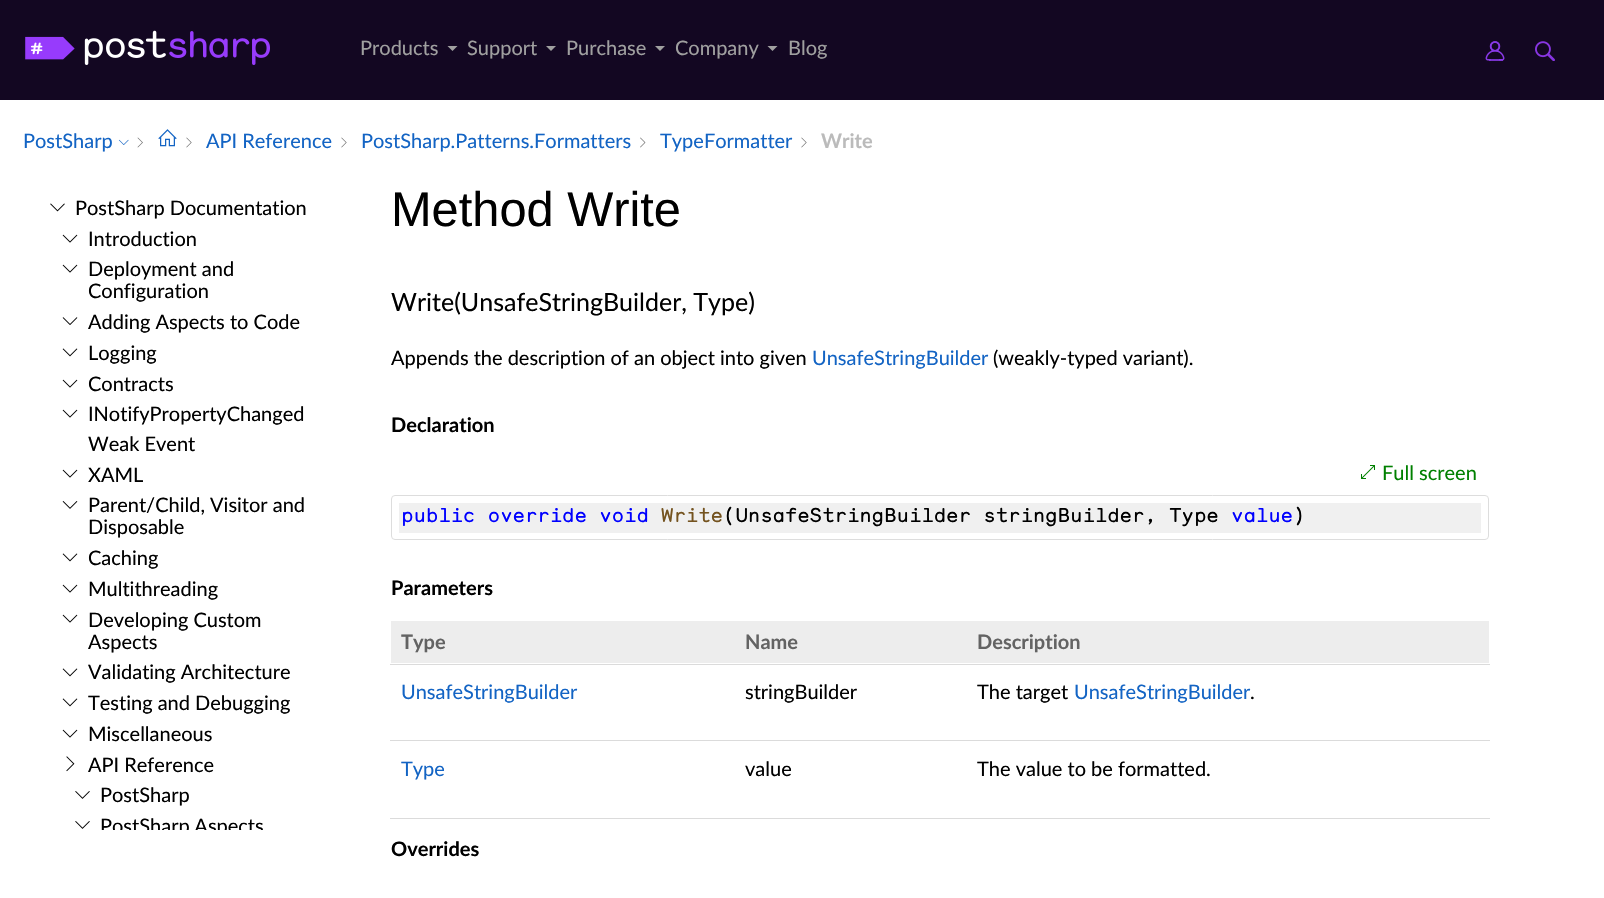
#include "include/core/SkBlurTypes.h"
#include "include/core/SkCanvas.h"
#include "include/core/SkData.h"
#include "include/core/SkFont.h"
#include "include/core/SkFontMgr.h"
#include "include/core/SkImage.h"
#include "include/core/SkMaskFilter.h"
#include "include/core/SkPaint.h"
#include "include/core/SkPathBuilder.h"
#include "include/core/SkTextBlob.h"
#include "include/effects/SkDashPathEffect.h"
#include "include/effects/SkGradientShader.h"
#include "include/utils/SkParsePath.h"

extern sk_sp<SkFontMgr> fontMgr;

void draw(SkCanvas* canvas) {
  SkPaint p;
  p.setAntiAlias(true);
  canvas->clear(SK_ColorWHITE);
  p.setColor(SkColorSetRGB(19, 7, 34));
  canvas->drawRect(SkRect::MakeLTRB(0, 0, 1604, 100), p);
  canvas->drawImageRect(SkImages::DeferredFromEncodedData(SkData::MakeFromFileName("images/1.png")), SkRect::MakeLTRB(25, 30, 270, 65), SkSamplingOptions());
  p.setColor(SkColorSetRGB(160, 160, 160));
  canvas->drawPath(SkPathBuilder().moveTo(447.5f, 46).lineTo(457.5f, 46).lineTo(452.5f, 51).close().detach(), p);
  canvas->drawPath(SkPathBuilder().moveTo(546, 46).lineTo(556, 46).lineTo(551, 51).close().detach(), p);
  canvas->drawPath(SkPathBuilder().moveTo(655, 46).lineTo(665, 46).lineTo(660, 51).close().detach(), p);
  canvas->drawPath(SkPathBuilder().moveTo(767.5f, 46).lineTo(777.5f, 46).lineTo(772.5f, 51).close().detach(), p);
  canvas->drawImageRect(SkImages::DeferredFromEncodedData(SkData::MakeFromFileName("images/2.png")), SkRect::MakeLTRB(1485, 41, 1505, 61), SkSamplingOptions());
  canvas->drawImageRect(SkImages::DeferredFromEncodedData(SkData::MakeFromFileName("images/3.png")), SkRect::MakeLTRB(1535, 41, 1555, 61), SkSamplingOptions());
  canvas->drawImageRect(SkImages::DeferredFromEncodedData(SkData::MakeFromFileName("images/4.png")), SkRect::MakeLTRB(118, 139, 129, 145), SkSamplingOptions());
  canvas->drawImageRect(SkImages::DeferredFromEncodedData(SkData::MakeFromFileName("images/5.png")), SkRect::MakeLTRB(137, 137, 143, 148), SkSamplingOptions());
  canvas->drawImageRect(SkImages::DeferredFromEncodedData(SkData::MakeFromFileName("images/6.png")), SkRect::MakeLTRB(158, 129, 177, 147), SkSamplingOptions());
  canvas->drawImageRect(SkImages::DeferredFromEncodedData(SkData::MakeFromFileName("images/7.png")), SkRect::MakeLTRB(186, 137, 192, 148), SkSamplingOptions());
  canvas->drawImageRect(SkImages::DeferredFromEncodedData(SkData::MakeFromFileName("images/7.png")), SkRect::MakeLTRB(341, 137, 347, 148), SkSamplingOptions());
  canvas->drawImageRect(SkImages::DeferredFromEncodedData(SkData::MakeFromFileName("images/8.png")), SkRect::MakeLTRB(640, 137, 646, 148), SkSamplingOptions());
  canvas->drawImageRect(SkImages::DeferredFromEncodedData(SkData::MakeFromFileName("images/7.png")), SkRect::MakeLTRB(801, 137, 807, 148), SkSamplingOptions());
  canvas->drawImageRect(SkImages::DeferredFromEncodedData(SkData::MakeFromFileName("images/9.png")), SkRect::MakeLTRB(50, 203, 65, 212), SkSamplingOptions());
  canvas->drawImageRect(SkImages::DeferredFromEncodedData(SkData::MakeFromFileName("images/10.png")), SkRect::MakeLTRB(62, 234, 78, 243), SkSamplingOptions());
  canvas->drawImageRect(SkImages::DeferredFromEncodedData(SkData::MakeFromFileName("images/10.png")), SkRect::MakeLTRB(62, 264, 78, 273), SkSamplingOptions());
  canvas->drawImageRect(SkImages::DeferredFromEncodedData(SkData::MakeFromFileName("images/11.png")), SkRect::MakeLTRB(62, 317, 78, 325), SkSamplingOptions());
  canvas->drawImageRect(SkImages::DeferredFromEncodedData(SkData::MakeFromFileName("images/12.png")), SkRect::MakeLTRB(62, 348, 78, 357), SkSamplingOptions());
  canvas->drawImageRect(SkImages::DeferredFromEncodedData(SkData::MakeFromFileName("images/10.png")), SkRect::MakeLTRB(62, 379, 78, 388), SkSamplingOptions());
  canvas->drawImageRect(SkImages::DeferredFromEncodedData(SkData::MakeFromFileName("images/10.png")), SkRect::MakeLTRB(62, 409, 78, 418), SkSamplingOptions());
  canvas->drawImageRect(SkImages::DeferredFromEncodedData(SkData::MakeFromFileName("images/10.png")), SkRect::MakeLTRB(62, 469, 78, 478), SkSamplingOptions());
  canvas->drawImageRect(SkImages::DeferredFromEncodedData(SkData::MakeFromFileName("images/13.png")), SkRect::MakeLTRB(62, 501, 78, 509), SkSamplingOptions());
  canvas->drawImageRect(SkImages::DeferredFromEncodedData(SkData::MakeFromFileName("images/12.png")), SkRect::MakeLTRB(62, 553, 78, 562), SkSamplingOptions());
  canvas->drawImageRect(SkImages::DeferredFromEncodedData(SkData::MakeFromFileName("images/10.png")), SkRect::MakeLTRB(62, 584, 78, 593), SkSamplingOptions());
  canvas->drawImageRect(SkImages::DeferredFromEncodedData(SkData::MakeFromFileName("images/10.png")), SkRect::MakeLTRB(62, 614, 78, 623), SkSamplingOptions());
  canvas->drawImageRect(SkImages::DeferredFromEncodedData(SkData::MakeFromFileName("images/12.png")), SkRect::MakeLTRB(62, 668, 78, 677), SkSamplingOptions());
  canvas->drawImageRect(SkImages::DeferredFromEncodedData(SkData::MakeFromFileName("images/12.png")), SkRect::MakeLTRB(62, 698, 78, 707), SkSamplingOptions());
  canvas->drawImageRect(SkImages::DeferredFromEncodedData(SkData::MakeFromFileName("images/10.png")), SkRect::MakeLTRB(62, 729, 78, 738), SkSamplingOptions());
  canvas->drawImageRect(SkImages::DeferredFromEncodedData(SkData::MakeFromFileName("images/14.png")), SkRect::MakeLTRB(66, 756, 75, 772), SkSamplingOptions());
  canvas->drawImageRect(SkImages::DeferredFromEncodedData(SkData::MakeFromFileName("images/15.png")), SkRect::MakeLTRB(75, 791, 90, 799), SkSamplingOptions());
  canvas->drawImageRect(SkImages::DeferredFromEncodedData(SkData::MakeFromFileName("images/15.png")), SkRect::MakeLTRB(75, 821, 90, 829), SkSamplingOptions());
  canvas->drawImageRect(SkImages::DeferredFromEncodedData(SkData::MakeFromFileName("images/16.png")), SkRect::MakeLTRB(1361, 465, 1375, 479), SkSamplingOptions());
  p.setStyle(SkPaint::kStroke_Style);
  p.setStrokeWidth(1);
  p.setColor(SkColorSetRGB(221, 221, 221));
  canvas->drawRoundRect(SkRect::MakeLTRB(391.5f, 495.5f, 1488.5f, 539.5f), 3.5f, 3.5f, p);
  p.setStyle(SkPaint::kFill_Style);
  p.setColor(SkColorSetRGB(240, 240, 240));
  canvas->drawRect(SkRect::MakeLTRB(399, 503, 1481, 533), p);
  p.setColor(SkColorSetRGB(237, 237, 237));
  canvas->drawRect(SkRect::MakeLTRB(391, 621, 1489, 663), p);
  p.setColor(SkColorSetRGB(219, 219, 219));
  canvas->drawRect(SkRect::MakeLTRB(390, 664, 1490, 665), p);
  canvas->drawRect(SkRect::MakeLTRB(390, 740, 1490, 741), p);
  canvas->drawRect(SkRect::MakeLTRB(390, 818, 1490, 819), p);
  SkFont font1(fontMgr->matchFamilyStyle("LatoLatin", SkFontStyle::Normal()), 20);
  font1.setSubpixel(true);
  p.setColor(SkColorSetRGB(160, 160, 160));
  canvas->drawString("Products", 360, 55, font1, p);
  canvas->drawString("Support", 467, 55, font1, p);
  canvas->drawString("Purchase", 566, 55, font1, p);
  canvas->drawString("Company", 675, 55, font1, p);
  canvas->drawString("Blog", 788, 55, font1, p);
  p.setColor(SkColorSetRGB(19, 100, 196));
  canvas->drawString("PostSharp", 23, 148, font1, p);
  canvas->drawString("API Reference", 206, 148, font1, p);
  canvas->drawString("PostSharp.Patterns.Formatters", 361, 148, font1, p);
  canvas->drawString("TypeFormatter", 660, 148, font1, p);
  SkFont font2(fontMgr->matchFamilyStyle("LatoLatin", SkFontStyle::Bold()), 20);
  font2.setSubpixel(true);
  p.setColor(SkColorSetRGB(187, 187, 187));
  canvas->drawString("Write", 821, 148, font2, p);
  p.setColor(SK_ColorBLACK);
  canvas->drawString("PostSharp Documentation", 75, 215, font1, p);
  canvas->drawString("Introduction", 88, 246, font1, p);
  canvas->drawString("Deployment and", 88, 276, font1, p);
  canvas->drawString("Configuration", 88, 298, font1, p);
  canvas->drawString("Adding Aspects to Code", 88, 329, font1, p);
  canvas->drawString("Logging", 88, 360, font1, p);
  canvas->drawString("Contracts", 88, 391, font1, p);
  canvas->drawString("INotifyPropertyChanged", 88, 421, font1, p);
  canvas->drawString("Weak Event", 88, 451, font1, p);
  canvas->drawString("XAML", 88, 482, font1, p);
  canvas->drawString("Parent/Child, Visitor and", 88, 512, font1, p);
  canvas->drawString("Disposable", 88, 534, font1, p);
  canvas->drawString("Caching", 88, 565, font1, p);
  canvas->drawString("Multithreading", 88, 596, font1, p);
  canvas->drawString("Developing Custom", 88, 627, font1, p);
  canvas->drawString("Aspects", 88, 649, font1, p);
  canvas->drawString("Validating Architecture", 88, 679, font1, p);
  canvas->drawString("Testing and Debugging", 88, 710, font1, p);
  canvas->drawString("Miscellaneous", 88, 741, font1, p);
  canvas->drawString("API Reference", 88, 772, font1, p);
  canvas->drawString("PostSharp", 100, 802, font1, p);
  canvas->save();
  canvas->clipRect(SkRect::MakeLTRB(13, 194, 354, 830));
  canvas->drawString("PostSharp.Aspects", 100, 833, font1, p);
  canvas->restore();
  SkFont font3(fontMgr->matchFamilyStyle("Liberation Sans", SkFontStyle::Normal()), 48.75f);
  font3.setSubpixel(true);
  canvas->drawString("Method Write", 391, 226, font3, p);
  SkFont font4(fontMgr->matchFamilyStyle("LatoLatin", SkFontStyle::Normal()), 25);
  font4.setSubpixel(true);
  canvas->drawString("Write(UnsafeStringBuilder, Type)", 391, 311, font4, p);
  canvas->drawString("Appends the description of an object into given", 391, 365, font1, p);
  p.setColor(SkColorSetRGB(19, 100, 196));
  canvas->drawString("UnsafeStringBuilder", 812, 365, font1, p);
  p.setColor(SK_ColorBLACK);
  canvas->drawString("(weakly-typed variant).", 993, 365, font1, p);
  canvas->drawString("Declaration", 391, 432, font2, p);
  p.setColor(SkColorSetRGB(0, 128, 0));
  canvas->drawString("Full screen", 1382, 480, font1, p);
  SkFont font5(fontMgr->matchFamilyStyle("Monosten", SkFontStyle::Normal()), 20);
  font5.setSubpixel(true);
  p.setColor(SkColorSetRGB(0, 0, 255));
  canvas->drawString("public override void", 401, 522, font5, p);
  p.setColor(SkColorSetRGB(116, 83, 31));
  canvas->drawString("Write", 661, 522, font5, p);
  p.setColor(SK_ColorBLACK);
  canvas->drawString("(UnsafeStringBuilder stringBuilder, Type", 723, 522, font5, p);
  p.setColor(SkColorSetRGB(0, 0, 255));
  canvas->drawString("value", 1231, 522, font5, p);
  p.setColor(SK_ColorBLACK);
  canvas->drawString(")", 1293, 522, font5, p);
  canvas->drawString("Parameters", 391, 595, font2, p);
  p.setColor(SkColorSetRGB(99, 99, 99));
  canvas->drawString("Type", 401, 649, font2, p);
  canvas->drawString("Name", 745, 649, font2, p);
  canvas->drawString("Description", 977, 649, font2, p);
  p.setColor(SkColorSetRGB(19, 100, 196));
  canvas->drawString("UnsafeStringBuilder", 401, 699, font1, p);
  p.setColor(SK_ColorBLACK);
  canvas->drawString("stringBuilder", 745, 699, font1, p);
  canvas->drawString("The target", 977, 699, font1, p);
  p.setColor(SkColorSetRGB(19, 100, 196));
  canvas->drawString("UnsafeStringBuilder", 1074, 699, font1, p);
  p.setColor(SK_ColorBLACK);
  canvas->drawString(".", 1250, 699, font1, p);
  p.setColor(SkColorSetRGB(19, 100, 196));
  canvas->drawString("Type", 401, 776, font1, p);
  p.setColor(SK_ColorBLACK);
  canvas->drawString("value", 745, 776, font1, p);
  canvas->drawString("The value to be formatted.", 977, 776, font1, p);
  canvas->drawString("Overrides", 391, 856, font2, p);
}
